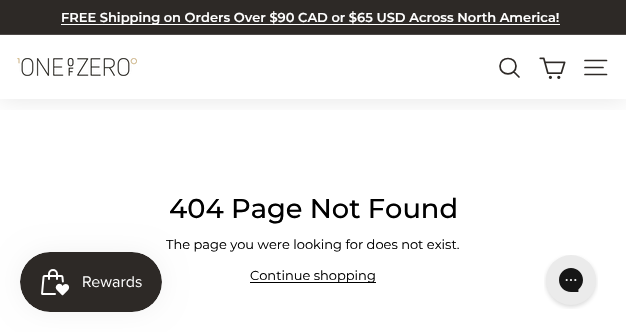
#include "include/core/SkBlurTypes.h"
#include "include/core/SkCanvas.h"
#include "include/core/SkData.h"
#include "include/core/SkFont.h"
#include "include/core/SkFontMgr.h"
#include "include/core/SkImage.h"
#include "include/core/SkMaskFilter.h"
#include "include/core/SkPaint.h"
#include "include/core/SkPathBuilder.h"
#include "include/core/SkTextBlob.h"
#include "include/effects/SkDashPathEffect.h"
#include "include/effects/SkGradientShader.h"
#include "include/utils/SkParsePath.h"

extern sk_sp<SkFontMgr> fontMgr;

void draw(SkCanvas* canvas) {
  SkPaint p;
  p.setAntiAlias(true);
  canvas->clear(SK_ColorWHITE);
  canvas->save();
  canvas->clipRect(SkRect::MakeLTRB(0, 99, 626, 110));
  p.setColor(SkColorSetARGB(26, 0, 0, 0));
  p.setMaskFilter(SkMaskFilter::MakeBlur(kNormal_SkBlurStyle, 12.5f));
  canvas->drawRect(SkRect::MakeLTRB(0, 35, 626, 99), p);
  p.setMaskFilter(nullptr);
  canvas->restore();
  canvas->drawImageRect(SkImages::DeferredFromEncodedData(SkData::MakeFromFileName("images/1.png")), SkRect::MakeLTRB(17, 58, 137, 76), SkSamplingOptions());
  p.setStyle(SkPaint::kStroke_Style);
  p.setStrokeWidth(1.7f);
  p.setStrokeCap(SkPaint::kRound_Cap);
  p.setStrokeJoin(SkPaint::kRound_Join);
  p.setColor(SkColorSetRGB(45, 41, 38));
  canvas->drawPath(SkPathBuilder().moveTo(516, 66).cubicTo(516, 76.5f, 500, 76.5f, 500, 66).cubicTo(500, 56, 516, 56, 516, 66).close().moveTo(519, 77).lineTo(513.5f, 71.5f).detach(), p);
  canvas->drawImageRect(SkImages::DeferredFromEncodedData(SkData::MakeFromFileName("images/2.png")), SkRect::MakeLTRB(539, 57, 566, 79), SkSamplingOptions());
  canvas->drawPath(SkPathBuilder().moveTo(585, 60.5f).lineTo(606.5f, 60.5f).moveTo(585, 67.5f).lineTo(603, 67.5f).moveTo(585, 74.5f).lineTo(606.5f, 74.5f).detach(), p);
  p.setStyle(SkPaint::kFill_Style);
  canvas->drawRect(SkRect::MakeLTRB(0, 0, 626, 34), p);
  p.setColor(SK_ColorWHITE);
  canvas->drawRect(SkRect::MakeLTRB(61, 24, 560, 25), p);
  p.setColor(SkColorSetRGB(77, 73, 71));
  canvas->drawRect(SkRect::MakeLTRB(0, 34, 626, 35), p);
  p.setColor(SK_ColorBLACK);
  canvas->drawRect(SkRect::MakeLTRB(250, 282, 376, 283), p);
  p.setColor(SkColorSetARGB(13, 0, 0, 0));
  p.setMaskFilter(SkMaskFilter::MakeBlur(kNormal_SkBlurStyle, 12.5f));
  canvas->drawRoundRect(SkRect::MakeLTRB(20, 252, 162, 312), 30, 30, p);
  p.setMaskFilter(nullptr);
  canvas->drawImageRect(SkImages::DeferredFromEncodedData(SkData::MakeFromFileName("images/3.png")), SkRect::MakeLTRB(20, 252, 162, 312), SkSamplingOptions());
  canvas->drawImageRect(SkImages::DeferredFromEncodedData(SkData::MakeFromFileName("images/4.png")), SkRect::MakeLTRB(544, 255, 598, 309), SkSamplingOptions());
  SkFont font1(fontMgr->matchFamilyStyle("Montserrat", SkFontStyle(600, SkFontStyle::kNormal_Width, SkFontStyle::kUpright_Slant)), 13);
  font1.setSubpixel(true);
  p.setColor(SK_ColorWHITE);
  canvas->drawString("FREE Shipping on Orders Over $90 CAD or $65 USD Across North America!", 61, 22, font1, p);
  SkFont font2(fontMgr->matchFamilyStyle("Montserrat", SkFontStyle(500, SkFontStyle::kNormal_Width, SkFontStyle::kUpright_Slant)), 27.25f);
  font2.setSubpixel(true);
  p.setColor(SK_ColorBLACK);
  canvas->drawString("404 Page Not Found", 169, 218, font2, p);
  SkFont font3(fontMgr->matchFamilyStyle("Montserrat", SkFontStyle(100, SkFontStyle::kNormal_Width, SkFontStyle::kUpright_Slant)), 13);
  font3.setSubpixel(true);
  canvas->drawString("The page you were looking for does not exist.", 166, 249, font3, p);
  canvas->drawString("Continue shopping", 250, 280, font3, p);
}
